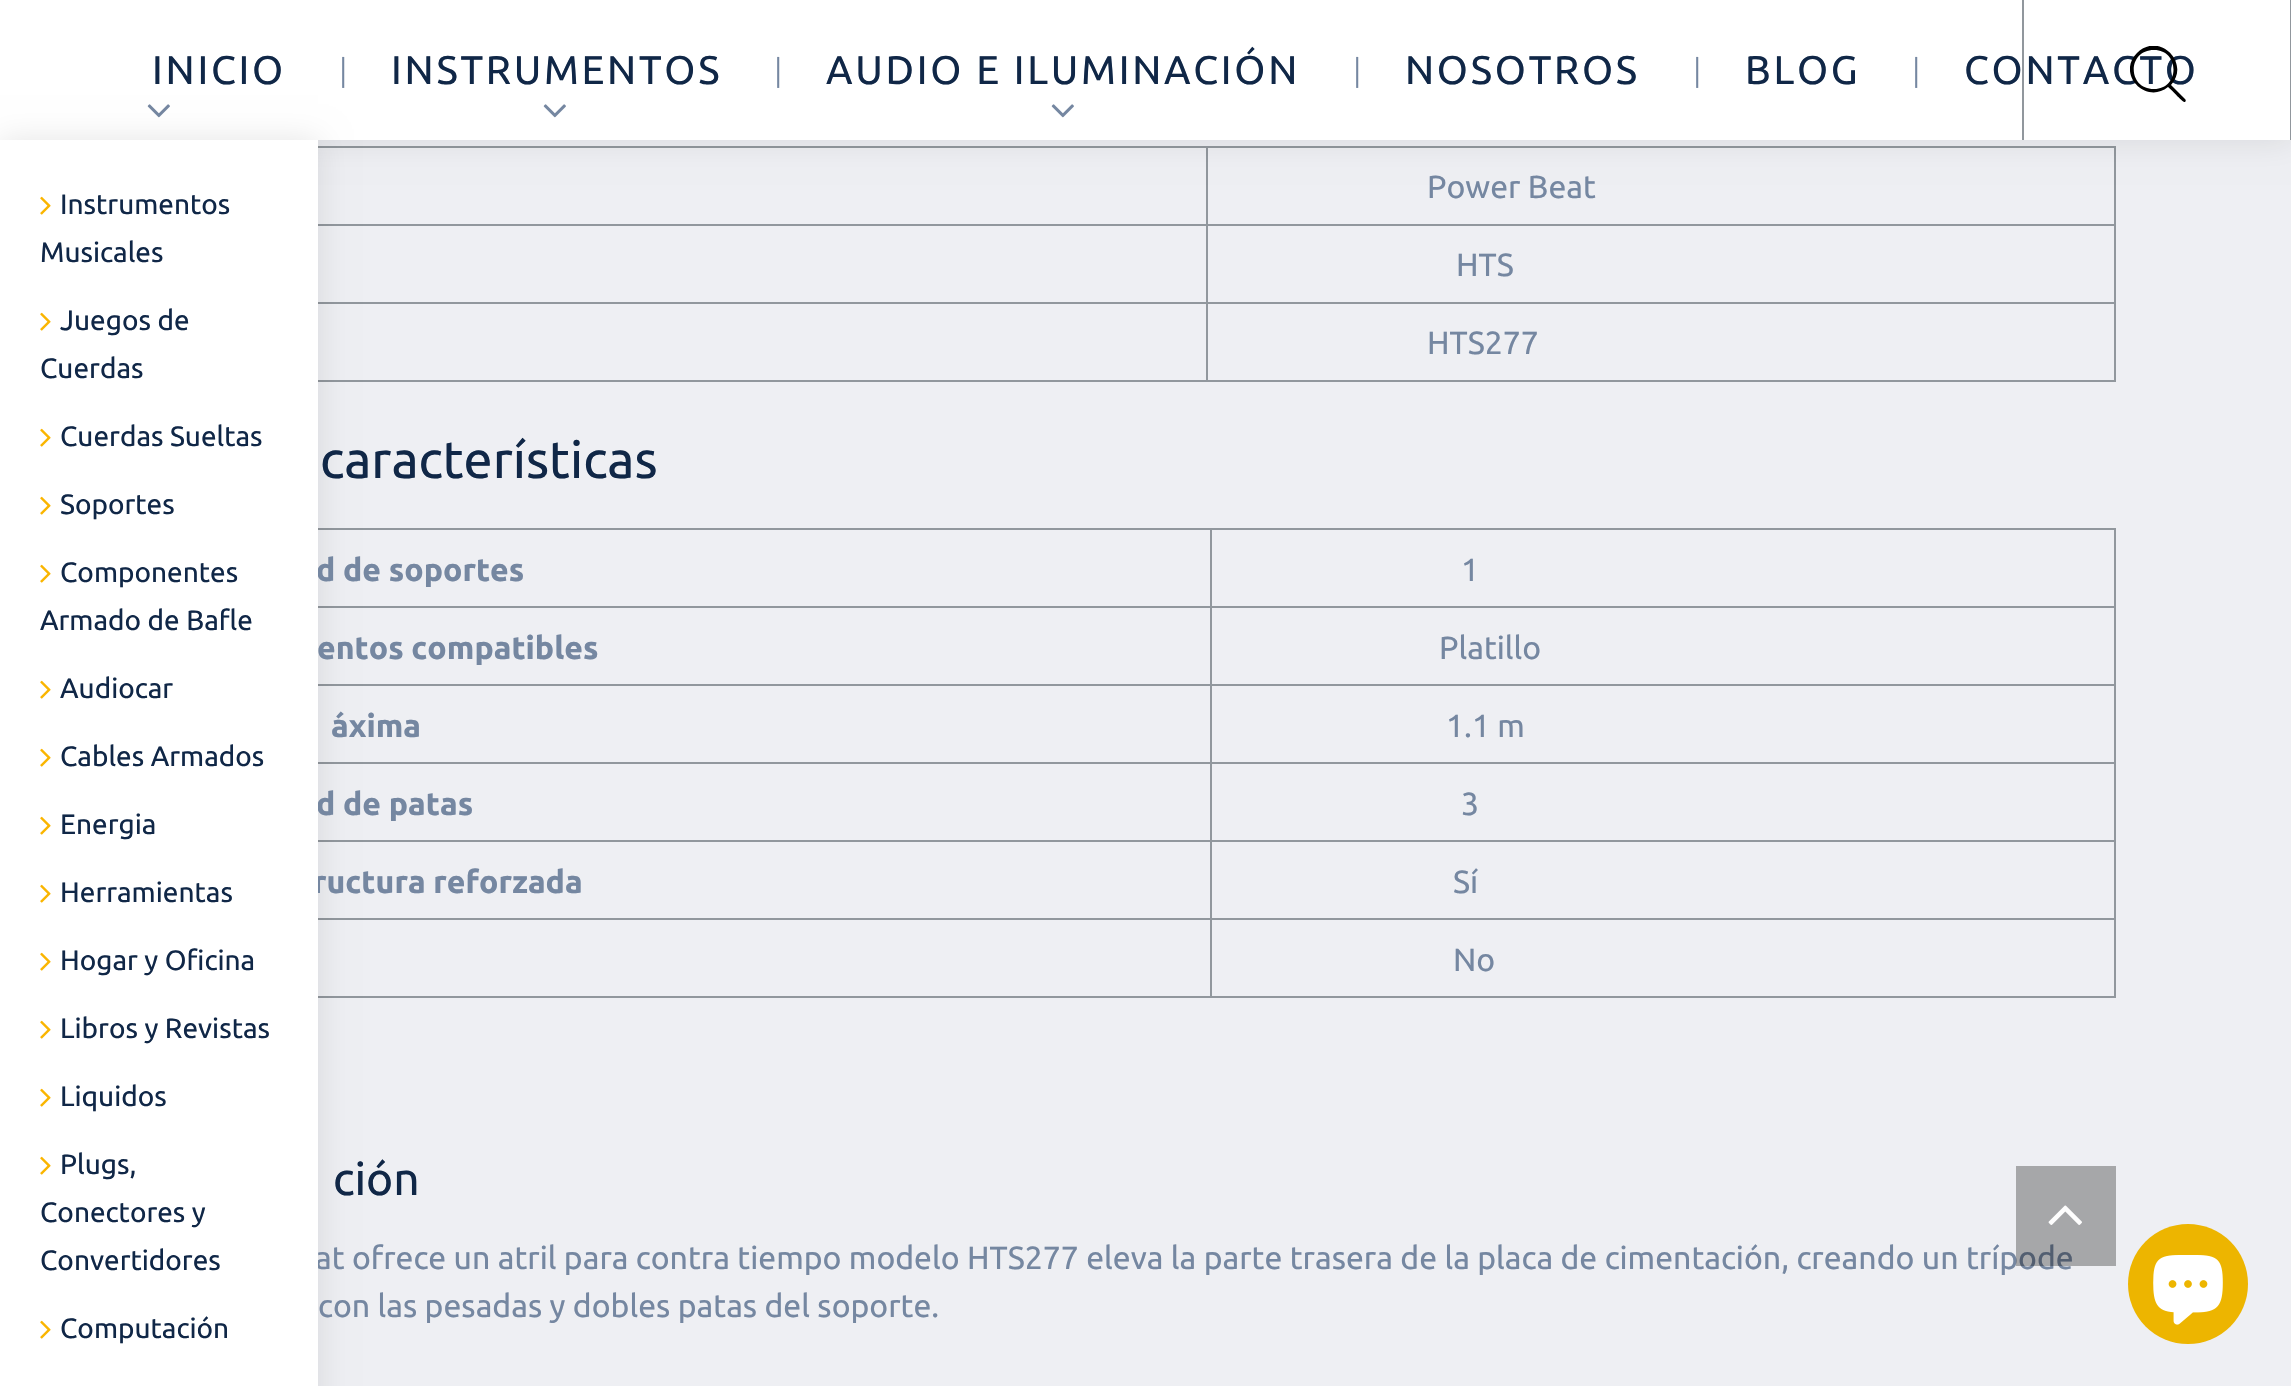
#include "include/core/SkBlurTypes.h"
#include "include/core/SkCanvas.h"
#include "include/core/SkData.h"
#include "include/core/SkFont.h"
#include "include/core/SkFontMgr.h"
#include "include/core/SkImage.h"
#include "include/core/SkMaskFilter.h"
#include "include/core/SkPaint.h"
#include "include/core/SkPathBuilder.h"
#include "include/core/SkTextBlob.h"
#include "include/effects/SkDashPathEffect.h"
#include "include/effects/SkGradientShader.h"
#include "include/utils/SkParsePath.h"

extern sk_sp<SkFontMgr> fontMgr;

void draw(SkCanvas* canvas) {
  SkPaint p;
  p.setAntiAlias(true);
  auto spacedText = [&](const char* s, float x, float y, const SkFont& font, const SkPaint& ink, float letter, float word) {
    std::vector<SkGlyphID> glyphs(font.countText(s, strlen(s), SkTextEncoding::kUTF8));
    std::vector<float> xs(glyphs.size());
    font.textToGlyphs(s, strlen(s), SkTextEncoding::kUTF8, glyphs);
    font.getXPos(glyphs, xs, x);
    float extra = 0;
    for (size_t i = 0; i < glyphs.size(); i++) {
      xs[i] += extra;
      extra += letter + word * (glyphs[i] == font.unicharToGlyph(' '));
    }
    canvas->drawTextBlob(SkTextBlob::MakeFromPosHGlyphs(glyphs, xs, y, font), 0, 0, ink);
  };
  canvas->clear(SkColorSetRGB(238, 239, 243));
  p.setColor(SkColorSetRGB(145, 151, 157));
  canvas->drawRect(SkRect::MakeLTRB(1206, 146, 2116, 148), p);
  canvas->drawRect(SkRect::MakeLTRB(1206, 224, 2116, 226), p);
  canvas->drawRect(SkRect::MakeLTRB(1206, 302, 2116, 304), p);
  canvas->drawRect(SkRect::MakeLTRB(2114, 302, 2116, 382), p);
  canvas->drawRect(SkRect::MakeLTRB(1206, 380, 2116, 382), p);
  canvas->drawRect(SkRect::MakeLTRB(1206, 302, 1208, 382), p);
  canvas->drawRect(SkRect::MakeLTRB(318, 302, 1208, 304), p);
  canvas->drawRect(SkRect::MakeLTRB(1206, 224, 1208, 304), p);
  canvas->drawRect(SkRect::MakeLTRB(318, 224, 1208, 226), p);
  canvas->drawRect(SkRect::MakeLTRB(1206, 146, 1208, 226), p);
  canvas->drawRect(SkRect::MakeLTRB(318, 146, 1208, 148), p);
  canvas->drawRect(SkRect::MakeLTRB(2114, 224, 2116, 304), p);
  canvas->drawRect(SkRect::MakeLTRB(2114, 146, 2116, 226), p);
  p.setColor(SkColorSetARGB(26, 0, 0, 0));
  p.setMaskFilter(SkMaskFilter::MakeBlur(kNormal_SkBlurStyle, 15));
  canvas->drawRect(SkRect::MakeLTRB(0, 0, 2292, 140), p);
  p.setMaskFilter(nullptr);
  p.setColor(SK_ColorWHITE);
  canvas->drawRect(SkRect::MakeLTRB(0, 0, 2290, 140), p);
  p.setColor(SkColorSetRGB(145, 151, 157));
  canvas->drawRect(SkRect::MakeLTRB(2290, 0, 2291, 140), p);
  canvas->drawImageRect(SkImages::DeferredFromEncodedData(SkData::MakeFromFileName("images/1.png")), SkRect::MakeLTRB(147, 104, 170, 118), SkSamplingOptions());
  canvas->drawRect(SkRect::MakeLTRB(318, 380, 1208, 382), p);
  canvas->drawRect(SkRect::MakeLTRB(1210, 528, 2116, 530), p);
  canvas->drawRect(SkRect::MakeLTRB(1210, 606, 2116, 608), p);
  canvas->drawRect(SkRect::MakeLTRB(1210, 684, 2116, 686), p);
  canvas->drawRect(SkRect::MakeLTRB(1210, 762, 2116, 764), p);
  canvas->drawRect(SkRect::MakeLTRB(1210, 840, 2116, 842), p);
  canvas->drawRect(SkRect::MakeLTRB(1210, 918, 2116, 920), p);
  canvas->drawRect(SkRect::MakeLTRB(2114, 918, 2116, 998), p);
  canvas->drawRect(SkRect::MakeLTRB(1210, 996, 2116, 998), p);
  canvas->drawRect(SkRect::MakeLTRB(1210, 918, 1212, 998), p);
  canvas->drawRect(SkRect::MakeLTRB(318, 918, 1212, 920), p);
  canvas->drawRect(SkRect::MakeLTRB(1210, 840, 1212, 920), p);
  canvas->drawRect(SkRect::MakeLTRB(318, 840, 1212, 842), p);
  canvas->drawRect(SkRect::MakeLTRB(1210, 762, 1212, 842), p);
  canvas->drawRect(SkRect::MakeLTRB(318, 762, 1212, 764), p);
  canvas->drawRect(SkRect::MakeLTRB(1210, 684, 1212, 764), p);
  canvas->drawRect(SkRect::MakeLTRB(318, 684, 1212, 686), p);
  canvas->drawRect(SkRect::MakeLTRB(1210, 606, 1212, 686), p);
  canvas->drawRect(SkRect::MakeLTRB(318, 606, 1212, 608), p);
  canvas->drawRect(SkRect::MakeLTRB(1210, 528, 1212, 608), p);
  canvas->drawRect(SkRect::MakeLTRB(318, 528, 1212, 530), p);
  canvas->drawRect(SkRect::MakeLTRB(318, 996, 1212, 998), p);
  p.setColor(SkColorSetARGB(26, 0, 0, 0));
  p.setMaskFilter(SkMaskFilter::MakeBlur(kNormal_SkBlurStyle, 15));
  canvas->drawRect(SkRect::MakeLTRB(0, 140, 318, 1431), p);
  p.setMaskFilter(nullptr);
  canvas->drawImageRect(SkImages::DeferredFromEncodedData(SkData::MakeFromFileName("images/1.png")), SkRect::MakeLTRB(543, 104, 566, 118), SkSamplingOptions());
  canvas->drawImageRect(SkImages::DeferredFromEncodedData(SkData::MakeFromFileName("images/1.png")), SkRect::MakeLTRB(1051, 104, 1074, 118), SkSamplingOptions());
  p.setColor(SkColorSetRGB(145, 151, 157));
  canvas->drawRect(SkRect::MakeLTRB(2114, 840, 2116, 920), p);
  canvas->drawRect(SkRect::MakeLTRB(2114, 762, 2116, 842), p);
  canvas->drawRect(SkRect::MakeLTRB(2114, 684, 2116, 764), p);
  canvas->drawRect(SkRect::MakeLTRB(2114, 606, 2116, 686), p);
  canvas->drawRect(SkRect::MakeLTRB(2114, 528, 2116, 608), p);
  p.setColor(SkColorSetRGB(237, 181, 0));
  canvas->drawCircle(2188, 1284, 60, p);
  canvas->drawImageRect(SkImages::DeferredFromEncodedData(SkData::MakeFromFileName("images/4.png")), SkRect::MakeLTRB(2153, 1255, 2223, 1325), SkSamplingOptions());
  SkFont font1(fontMgr->matchFamilyStyle("Ubuntu", SkFontStyle::Normal()), 40);
  font1.setSubpixel(true);
  p.setColor(SkColorSetRGB(16, 39, 71));
  spacedText("INICIO", 152, 84, font1, p, 2.75f, 0);
  SkFont font2(fontMgr->matchFamilyStyle("Ubuntu", SkFontStyle(300, SkFontStyle::kNormal_Width, SkFontStyle::kUpright_Slant)), 32);
  font2.setSubpixel(true);
  p.setColor(SkColorSetRGB(117, 135, 161));
  spacedText("|", 339, 82, font2, p, 2.75f, 0);
  p.setColor(SkColorSetRGB(16, 39, 71));
  spacedText("INSTRUMENTOS", 391, 84, font1, p, 2.75f, 0);
  p.setColor(SkColorSetRGB(117, 135, 161));
  spacedText("|", 774, 82, font2, p, 2.75f, 0);
  p.setColor(SkColorSetRGB(16, 39, 71));
  spacedText("AUDIO E ILUMINACIÓN", 826, 84, font1, p, 2.75f, 0);
  p.setColor(SkColorSetRGB(117, 135, 161));
  spacedText("|", 1353, 82, font2, p, 2.75f, 0);
  p.setColor(SkColorSetRGB(16, 39, 71));
  spacedText("NOSOTROS", 1405, 84, font1, p, 2.75f, 0);
  p.setColor(SkColorSetRGB(117, 135, 161));
  spacedText("|", 1693, 82, font2, p, 2.75f, 0);
  p.setColor(SkColorSetRGB(16, 39, 71));
  spacedText("BLOG", 1745, 84, font1, p, 2.75f, 0);
  p.setColor(SkColorSetRGB(117, 135, 161));
  spacedText("|", 1912, 82, font2, p, 2.75f, 0);
  p.setColor(SkColorSetRGB(16, 39, 71));
  spacedText("CONTACTO", 1964, 84, font1, p, 2.75f, 0);
  canvas->save();
  canvas->clipRect(SkRect::MakeLTRB(2130, 46, 2186, 102));
  p.setColor(SK_ColorBLACK);
  canvas->drawPath(SkPathBuilder().moveTo(2185, 99).lineTo(2171, 85).cubicTo(2191, 63, 2159, 31, 2137, 53).cubicTo(2116, 74, 2146, 105, 2168, 87).cubicTo(2171, 89, 2183, 103, 2185, 102).cubicTo(2186, 101, 2186, 100, 2185, 99).close().moveTo(2154, 89).cubicTo(2127, 89, 2127, 50, 2154, 50).cubicTo(2180, 50, 2180, 89, 2154, 89).close().detach(), p);
  canvas->restore();
  p.setColor(SkColorSetRGB(145, 151, 157));
  canvas->drawRect(SkRect::MakeLTRB(2022, 0, 2024, 140), p);
  SkFont font3(fontMgr->matchFamilyStyle("Ubuntu", SkFontStyle::Normal()), 32);
  font3.setSubpixel(true);
  p.setColor(SkColorSetRGB(117, 135, 161));
  canvas->drawString("Power Beat", 1427, 198, font3, p);
  canvas->drawString("HTS", 1456, 276, font3, p);
  canvas->drawString("HTS277", 1427, 354, font3, p);
  SkFont font4(fontMgr->matchFamilyStyle("Ubuntu", SkFontStyle::Normal()), 52);
  font4.setSubpixel(true);
  p.setColor(SkColorSetRGB(16, 39, 71));
  canvas->drawString("características", 320, 478, font4, p);
  SkFont font5(fontMgr->matchFamilyStyle("Ubuntu", SkFontStyle::Bold()), 32);
  font5.setSubpixel(true);
  p.setColor(SkColorSetRGB(117, 135, 161));
  canvas->drawString("d de soportes", 316, 581, font5, p);
  canvas->drawString("1", 1461, 581, font3, p);
  canvas->drawString("entos compatibles", 317, 659, font5, p);
  canvas->drawString("Platillo", 1439, 659, font3, p);
  canvas->drawString("áxima", 331, 737, font5, p);
  canvas->drawString("1.1 m", 1446, 737, font3, p);
  canvas->drawString("d de patas", 316, 815, font5, p);
  canvas->drawString("3", 1461, 815, font3, p);
  canvas->drawString("ructura reforzada", 313, 893, font5, p);
  canvas->drawString("Sí", 1453, 893, font3, p);
  canvas->drawString("No", 1453, 971, font3, p);
  SkFont font6(fontMgr->matchFamilyStyle("Ubuntu", SkFontStyle::Normal()), 46);
  font6.setSubpixel(true);
  p.setColor(SkColorSetRGB(16, 39, 71));
  canvas->drawString("ción", 333, 1195, font6, p);
  p.setColor(SkColorSetRGB(117, 135, 161));
  canvas->drawString("at ofrece un atril para contra tiempo modelo HTS277 eleva la parte trasera de la placa de cimentación, creando un trípode", 315, 1269, font3, p);
  p.setColor(SK_ColorWHITE);
  canvas->drawRect(SkRect::MakeLTRB(0, 140, 318, 1386), p);
  canvas->drawImageRect(SkImages::DeferredFromEncodedData(SkData::MakeFromFileName("images/2.png")), SkRect::MakeLTRB(40, 1320, 51, 1339), SkSamplingOptions());
  SkFont font7(fontMgr->matchFamilyStyle("Ubuntu", SkFontStyle::Normal()), 28);
  font7.setSubpixel(true);
  p.setColor(SkColorSetRGB(16, 39, 71));
  canvas->drawString("Computación", 60, 1338, font7, p);
  canvas->drawImageRect(SkImages::DeferredFromEncodedData(SkData::MakeFromFileName("images/2.png")), SkRect::MakeLTRB(40, 1156, 51, 1175), SkSamplingOptions());
  canvas->drawString("Convertidores", 40, 1270, font7, p);
  canvas->drawString("Conectores y", 40, 1222, font7, p);
  canvas->drawString("Plugs,", 60, 1174, font7, p);
  canvas->drawImageRect(SkImages::DeferredFromEncodedData(SkData::MakeFromFileName("images/2.png")), SkRect::MakeLTRB(40, 1088, 51, 1107), SkSamplingOptions());
  canvas->drawString("Liquidos", 60, 1106, font7, p);
  canvas->drawImageRect(SkImages::DeferredFromEncodedData(SkData::MakeFromFileName("images/2.png")), SkRect::MakeLTRB(40, 1020, 51, 1039), SkSamplingOptions());
  canvas->drawString("Libros y Revistas", 60, 1038, font7, p);
  canvas->drawImageRect(SkImages::DeferredFromEncodedData(SkData::MakeFromFileName("images/2.png")), SkRect::MakeLTRB(40, 952, 51, 971), SkSamplingOptions());
  canvas->drawString("Hogar y Oficina", 60, 970, font7, p);
  canvas->drawImageRect(SkImages::DeferredFromEncodedData(SkData::MakeFromFileName("images/2.png")), SkRect::MakeLTRB(40, 884, 51, 903), SkSamplingOptions());
  canvas->drawString("Herramientas", 60, 902, font7, p);
  canvas->drawImageRect(SkImages::DeferredFromEncodedData(SkData::MakeFromFileName("images/2.png")), SkRect::MakeLTRB(40, 816, 51, 835), SkSamplingOptions());
  canvas->drawString("Energia", 60, 834, font7, p);
  canvas->drawImageRect(SkImages::DeferredFromEncodedData(SkData::MakeFromFileName("images/2.png")), SkRect::MakeLTRB(40, 748, 51, 767), SkSamplingOptions());
  canvas->drawString("Cables Armados", 60, 766, font7, p);
  canvas->drawImageRect(SkImages::DeferredFromEncodedData(SkData::MakeFromFileName("images/2.png")), SkRect::MakeLTRB(40, 680, 51, 699), SkSamplingOptions());
  canvas->drawString("Audiocar", 60, 698, font7, p);
  canvas->drawImageRect(SkImages::DeferredFromEncodedData(SkData::MakeFromFileName("images/2.png")), SkRect::MakeLTRB(40, 564, 51, 583), SkSamplingOptions());
  canvas->drawString("Armado de Bafle", 40, 630, font7, p);
  canvas->drawString("Componentes", 60, 582, font7, p);
  canvas->drawImageRect(SkImages::DeferredFromEncodedData(SkData::MakeFromFileName("images/2.png")), SkRect::MakeLTRB(40, 496, 51, 515), SkSamplingOptions());
  canvas->drawString("Soportes", 60, 514, font7, p);
  canvas->drawImageRect(SkImages::DeferredFromEncodedData(SkData::MakeFromFileName("images/2.png")), SkRect::MakeLTRB(40, 428, 51, 447), SkSamplingOptions());
  canvas->drawString("Cuerdas Sueltas", 60, 446, font7, p);
  canvas->drawImageRect(SkImages::DeferredFromEncodedData(SkData::MakeFromFileName("images/2.png")), SkRect::MakeLTRB(40, 312, 51, 331), SkSamplingOptions());
  canvas->drawString("Cuerdas", 40, 378, font7, p);
  canvas->drawString("Juegos de", 60, 330, font7, p);
  canvas->drawImageRect(SkImages::DeferredFromEncodedData(SkData::MakeFromFileName("images/2.png")), SkRect::MakeLTRB(40, 196, 51, 215), SkSamplingOptions());
  canvas->drawString("Musicales", 40, 262, font7, p);
  canvas->drawString("Instrumentos", 60, 214, font7, p);
  p.setColor(SkColorSetRGB(117, 135, 161));
  canvas->drawString("con las pesadas y dobles patas del soporte.", 318, 1317, font3, p);
  p.setColor(SkColorSetARGB(77, 0, 0, 0));
  canvas->drawRect(SkRect::MakeLTRB(2016, 1166, 2116, 1266), p);
  canvas->drawImageRect(SkImages::DeferredFromEncodedData(SkData::MakeFromFileName("images/3.png")), SkRect::MakeLTRB(2048, 1205, 2082, 1225), SkSamplingOptions());
}
